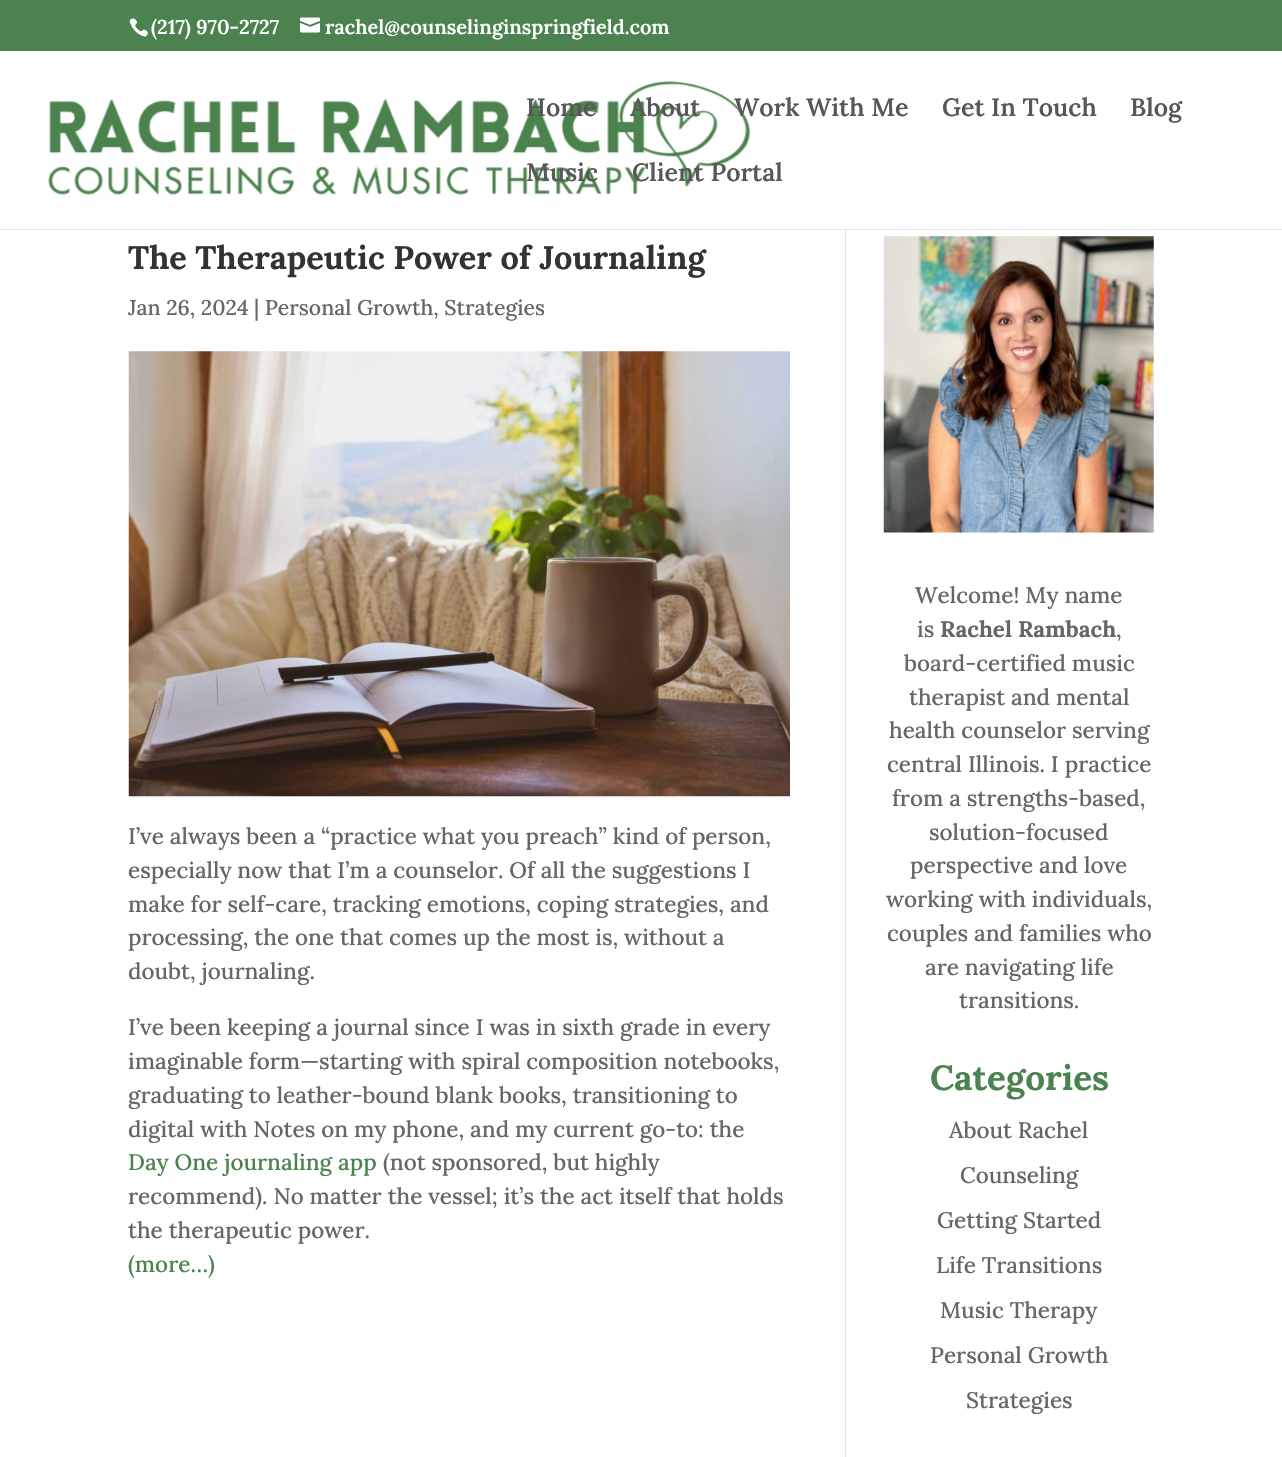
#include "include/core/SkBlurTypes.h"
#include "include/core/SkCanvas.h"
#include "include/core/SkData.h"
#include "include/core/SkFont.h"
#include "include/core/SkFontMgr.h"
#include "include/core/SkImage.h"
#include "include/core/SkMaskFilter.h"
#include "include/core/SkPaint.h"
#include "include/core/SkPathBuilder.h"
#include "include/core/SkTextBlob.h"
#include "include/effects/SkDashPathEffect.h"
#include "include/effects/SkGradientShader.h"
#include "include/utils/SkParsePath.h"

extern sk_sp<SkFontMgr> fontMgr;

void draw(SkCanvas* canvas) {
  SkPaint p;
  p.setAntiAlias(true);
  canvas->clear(SK_ColorWHITE);
  p.setColor(SkColorSetRGB(75, 130, 79));
  canvas->drawRect(SkRect::MakeLTRB(0, 0, 1282, 51), p);
  canvas->drawImageRect(SkImages::DeferredFromEncodedData(SkData::MakeFromFileName("images/1.png")), SkRect::MakeLTRB(129, 18, 148, 37), SkSamplingOptions());
  canvas->drawImageRect(SkImages::DeferredFromEncodedData(SkData::MakeFromFileName("images/2.png")), SkRect::MakeLTRB(300, 17, 320, 33), SkSamplingOptions());
  p.setColor(SkColorSetRGB(226, 226, 226));
  canvas->drawRect(SkRect::MakeLTRB(845, 229, 846, 1457), p);
  p.setColor(SkColorSetARGB(26, 0, 0, 0));
  canvas->drawPath(SkPathBuilder().moveTo(0, 229).lineTo(0, 230).lineTo(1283, 230).lineTo(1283, 53).lineTo(1282, 53).lineTo(1282, 229).close().detach(), p);
  canvas->drawImageRect(SkImages::DeferredFromEncodedData(SkData::MakeFromFileName("images/3.png")), SkRect::MakeLTRB(48, 81, 751, 195), SkSamplingOptions());
  canvas->drawImageRect(SkImages::DeferredFromEncodedData(SkData::MakeFromFileName("images/4.png")), SkRect::MakeLTRB(128, 351, 790, 797), SkSamplingOptions());
  canvas->drawImageRect(SkImages::DeferredFromEncodedData(SkData::MakeFromFileName("images/5.png")), SkRect::MakeLTRB(883, 236, 1154, 533), SkSamplingOptions());
  SkFont font1(fontMgr->matchFamilyStyle("Lora", SkFontStyle(600, SkFontStyle::kNormal_Width, SkFontStyle::kUpright_Slant)), 20);
  font1.setSubpixel(true);
  p.setColor(SK_ColorWHITE);
  canvas->drawString("(217) 970-2727", 151, 34, font1, p);
  canvas->drawString("rachel@counselinginspringfield.com", 325, 34, font1, p);
  SkFont font2(fontMgr->matchFamilyStyle("Lora", SkFontStyle(600, SkFontStyle::kNormal_Width, SkFontStyle::kUpright_Slant)), 25);
  font2.setSubpixel(true);
  p.setColor(SkColorSetRGB(87, 87, 87));
  canvas->drawString("Home", 526, 116, font2, p);
  canvas->drawString("About", 630, 116, font2, p);
  canvas->drawString("Work With Me", 734, 116, font2, p);
  canvas->drawString("Get In Touch", 942, 116, font2, p);
  canvas->drawString("Blog", 1130, 116, font2, p);
  canvas->drawString("Music", 526, 181, font2, p);
  canvas->drawString("Client Portal", 632, 181, font2, p);
  SkFont font3(fontMgr->matchFamilyStyle("Lora", SkFontStyle::Bold()), 32.5f);
  font3.setSubpixel(true);
  p.setColor(SkColorSetRGB(51, 51, 51));
  canvas->drawString("The Therapeutic Power of Journaling", 128, 269, font3, p);
  SkFont font4(fontMgr->matchFamilyStyle("Lora", SkFontStyle(500, SkFontStyle::kNormal_Width, SkFontStyle::kUpright_Slant)), 21.25f);
  font4.setSubpixel(true);
  p.setColor(SkColorSetRGB(102, 102, 102));
  canvas->drawString("Jan 26, 2024 | Personal Growth, Strategies", 128, 315, font4, p);
  SkFont font5(fontMgr->matchFamilyStyle("Lora", SkFontStyle(500, SkFontStyle::kNormal_Width, SkFontStyle::kUpright_Slant)), 22.5f);
  font5.setSubpixel(true);
  canvas->drawString("I’ve always been a “practice what you preach” kind of person,", 128, 844, font5, p);
  canvas->drawString("especially now that I’m a counselor. Of all the suggestions I", 128, 878, font5, p);
  canvas->drawString("make for self-care, tracking emotions, coping strategies, and", 128, 912, font5, p);
  canvas->drawString("processing, the one that comes up the most is, without a", 128, 945, font5, p);
  canvas->drawString("doubt, journaling.", 128, 979, font5, p);
  canvas->drawString("I’ve been keeping a journal since I was in sixth grade in every", 128, 1035, font5, p);
  canvas->drawString("imaginable form—starting with spiral composition notebooks,", 128, 1069, font5, p);
  canvas->drawString("graduating to leather-bound blank books, transitioning to", 128, 1103, font5, p);
  canvas->drawString("digital with Notes on my phone, and my current go-to: the", 128, 1137, font5, p);
  p.setColor(SkColorSetRGB(75, 130, 79));
  canvas->drawString("Day One journaling app", 128, 1170, font5, p);
  p.setColor(SkColorSetRGB(102, 102, 102));
  canvas->drawString("(not sponsored, but highly", 383, 1170, font5, p);
  canvas->drawString("recommend). No matter the vessel; it’s the act itself that holds", 128, 1204, font5, p);
  canvas->drawString("the therapeutic power.", 128, 1238, font5, p);
  p.setColor(SkColorSetRGB(75, 130, 79));
  canvas->drawString("(more…)", 128, 1272, font5, p);
  p.setColor(SkColorSetRGB(102, 102, 102));
  canvas->drawString("Welcome! My name", 915, 603, font5, p);
  canvas->drawString("is", 917, 637, font5, p);
  SkFont font6(fontMgr->matchFamilyStyle("Lora", SkFontStyle::Bold()), 22.5f);
  font6.setSubpixel(true);
  canvas->drawString("Rachel Rambach", 940, 637, font6, p);
  canvas->drawString(",", 1116, 637, font5, p);
  canvas->drawString("board-certified music", 904, 671, font5, p);
  canvas->drawString("therapist and mental", 909, 705, font5, p);
  canvas->drawString("health counselor serving", 889, 738, font5, p);
  canvas->drawString("central Illinois. I practice", 887, 772, font5, p);
  canvas->drawString("from a strengths-based,", 892, 806, font5, p);
  canvas->drawString("solution-focused", 929, 840, font5, p);
  canvas->drawString("perspective and love", 910, 873, font5, p);
  canvas->drawString("working with individuals,", 886, 907, font5, p);
  canvas->drawString("couples and families who", 887, 941, font5, p);
  canvas->drawString("are navigating life", 925, 975, font5, p);
  canvas->drawString("transitions.", 959, 1008, font5, p);
  SkFont font7(fontMgr->matchFamilyStyle("Lora", SkFontStyle::Bold()), 35);
  font7.setSubpixel(true);
  p.setColor(SkColorSetRGB(75, 130, 79));
  canvas->drawString("Categories", 930, 1090, font7, p);
  p.setColor(SkColorSetRGB(102, 102, 102));
  canvas->drawString("About Rachel", 949, 1138, font5, p);
  canvas->drawString("Counseling", 960, 1183, font5, p);
  canvas->drawString("Getting Started", 937, 1228, font5, p);
  canvas->drawString("Life Transitions", 936, 1273, font5, p);
  canvas->drawString("Music Therapy", 940, 1318, font5, p);
  canvas->drawString("Personal Growth", 930, 1363, font5, p);
  canvas->drawString("Strategies", 966, 1408, font5, p);
}
